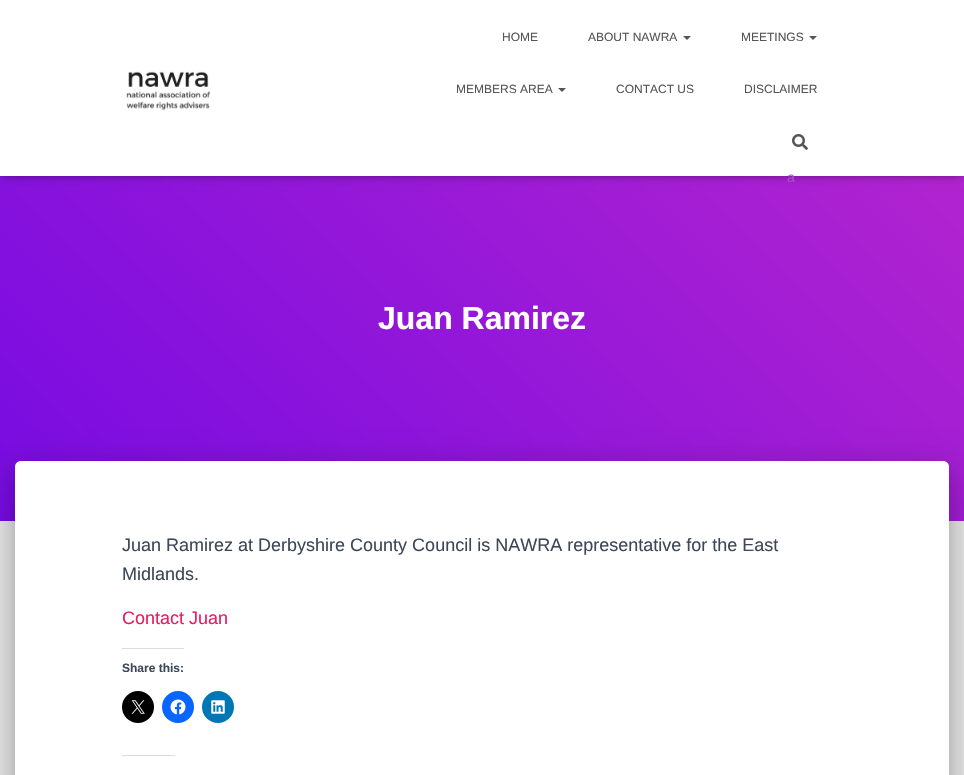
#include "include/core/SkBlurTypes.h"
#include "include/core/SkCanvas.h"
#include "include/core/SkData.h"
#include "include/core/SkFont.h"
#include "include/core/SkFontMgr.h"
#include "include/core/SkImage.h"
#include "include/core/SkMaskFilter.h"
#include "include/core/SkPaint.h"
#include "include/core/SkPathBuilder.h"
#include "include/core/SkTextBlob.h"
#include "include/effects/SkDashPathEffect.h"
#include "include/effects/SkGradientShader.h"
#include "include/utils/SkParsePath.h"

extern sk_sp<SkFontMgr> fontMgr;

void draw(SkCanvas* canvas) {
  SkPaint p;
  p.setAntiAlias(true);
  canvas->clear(SkColorSetRGB(229, 229, 229));
  {
    const SkColor colors[] = {SkColorSetRGB(119, 11, 226), SkColorSetRGB(185, 39, 205)};
    const float stops[] = {0, 1};
    const SkPoint ends[] = {{111, 632}, {853, -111}};
    p.setShader(SkGradientShader::MakeLinear(ends, colors, stops, 2, SkTileMode::kClamp));
    p.setAlpha(255);
  }
  canvas->drawRect(SkRect::MakeLTRB(0, 176, 964, 521), p);
  p.setShader(nullptr);
  p.setColor(SkColorSetARGB(26, 0, 0, 0));
  p.setMaskFilter(SkMaskFilter::MakeBlur(kNormal_SkBlurStyle, 2.5f));
  canvas->drawRect(SkRect::MakeLTRB(2, 6, 962, 178), p);
  p.setMaskFilter(nullptr);
  p.setColor(SkColorSetARGB(31, 0, 0, 0));
  p.setMaskFilter(SkMaskFilter::MakeBlur(kNormal_SkBlurStyle, 5));
  canvas->drawRect(SkRect::MakeLTRB(0, 1, 964, 177), p);
  p.setMaskFilter(nullptr);
  p.setColor(SkColorSetARGB(107, 0, 0, 0));
  p.setMaskFilter(SkMaskFilter::MakeBlur(kNormal_SkBlurStyle, 5));
  canvas->drawRect(SkRect::MakeLTRB(6, 7, 958, 171), p);
  p.setMaskFilter(nullptr);
  p.setColor(SK_ColorWHITE);
  canvas->drawRect(SkRect::MakeLTRB(0, 0, 964, 176), p);
  canvas->drawImageRect(SkImages::DeferredFromEncodedData(SkData::MakeFromFileName("images/1.png")), SkRect::MakeLTRB(126, 71, 211, 111), SkSamplingOptions());
  p.setColor(SkColorSetRGB(85, 85, 85));
  canvas->drawPath(SkPathBuilder().moveTo(683, 36).lineTo(691, 36).lineTo(687, 40).close().detach(), p);
  canvas->drawPath(SkPathBuilder().moveTo(809, 36).lineTo(817, 36).lineTo(813, 40).close().detach(), p);
  canvas->drawPath(SkPathBuilder().moveTo(558, 88).lineTo(566, 88).lineTo(562, 92).close().detach(), p);
  canvas->drawImageRect(SkImages::DeferredFromEncodedData(SkData::MakeFromFileName("images/2.png")), SkRect::MakeLTRB(792, 134, 808, 150), SkSamplingOptions());
  p.setColor(SkColorSetARGB(51, 0, 0, 0));
  p.setMaskFilter(SkMaskFilter::MakeBlur(kNormal_SkBlurStyle, 5));
  canvas->drawRoundRect(SkRect::MakeLTRB(20, 474, 944, 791), 1, 1, p);
  p.setMaskFilter(nullptr);
  p.setColor(SkColorSetARGB(31, 0, 0, 0));
  p.setMaskFilter(SkMaskFilter::MakeBlur(kNormal_SkBlurStyle, 15));
  canvas->drawRoundRect(SkRect::MakeLTRB(10, 462, 954, 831), 11, 11, p);
  p.setMaskFilter(nullptr);
  p.setColor(SkColorSetARGB(36, 0, 0, 0));
  p.setMaskFilter(SkMaskFilter::MakeBlur(kNormal_SkBlurStyle, 12));
  canvas->drawRoundRect(SkRect::MakeLTRB(13, 475, 951, 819), 8, 8, p);
  p.setMaskFilter(nullptr);
  p.setColor(SK_ColorWHITE);
  canvas->drawPath(SkPathBuilder().moveTo(21, 461).lineTo(943, 461).cubicTo(946.5f, 461, 949, 463.5f, 949, 467).lineTo(949, 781).lineTo(15, 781).lineTo(15, 467).cubicTo(15, 463.5f, 17.5f, 461, 21, 461).close().detach(), p);
  p.setColor(SkColorSetRGB(220, 220, 222));
  canvas->drawRect(SkRect::MakeLTRB(122, 648, 184, 649), p);
  p.setColor(SK_ColorBLACK);
  canvas->drawCircle(138, 707, 16, p);
  canvas->drawImageRect(SkImages::DeferredFromEncodedData(SkData::MakeFromFileName("images/3.png")), SkRect::MakeLTRB(131, 700, 145, 714), SkSamplingOptions());
  p.setColor(SkColorSetRGB(8, 102, 255));
  canvas->drawCircle(178, 707, 16, p);
  canvas->drawImageRect(SkImages::DeferredFromEncodedData(SkData::MakeFromFileName("images/4.png")), SkRect::MakeLTRB(170, 699, 186, 715), SkSamplingOptions());
  p.setColor(SkColorSetRGB(0, 119, 181));
  canvas->drawCircle(218, 707, 16, p);
  canvas->drawImageRect(SkImages::DeferredFromEncodedData(SkData::MakeFromFileName("images/5.png")), SkRect::MakeLTRB(211, 700, 225, 714), SkSamplingOptions());
  p.setColor(SkColorSetRGB(220, 220, 222));
  canvas->drawRect(SkRect::MakeLTRB(122, 755, 175, 756), p);
  SkFont font1(fontMgr->matchFamilyStyle("Liberation Sans", SkFontStyle::Normal()), 12);
  font1.setSubpixel(true);
  p.setColor(SkColorSetRGB(85, 85, 85));
  canvas->drawString("HOME", 502, 41, font1, p);
  canvas->drawString("ABOUT NAWRA", 588, 41, font1, p);
  canvas->drawString("MEETINGS", 741, 41, font1, p);
  canvas->drawString("MEMBERS AREA", 456, 93, font1, p);
  canvas->drawString("CONTACT US", 616, 93, font1, p);
  canvas->drawString("DISCLAIMER", 744, 93, font1, p);
  SkFont font2(fontMgr->matchFamilyStyle("Liberation Sans", SkFontStyle::Normal()), 14);
  font2.setSubpixel(true);
  p.setColor(SkColorSetRGB(175, 76, 205));
  canvas->drawString("a", 787, 182, font2, p);
  SkFont font3(fontMgr->matchFamilyStyle("Liberation Sans", SkFontStyle::Bold()), 32);
  font3.setSubpixel(true);
  p.setColor(SK_ColorWHITE);
  canvas->drawString("Juan Ramirez", 378, 329, font3, p);
  SkFont font4(fontMgr->matchFamilyStyle("Liberation Sans", SkFontStyle::Normal()), 18);
  font4.setSubpixel(true);
  p.setColor(SkColorSetRGB(60, 72, 88));
  canvas->drawString("Juan Ramirez at Derbyshire County Council is NAWRA representative for the East", 122, 551, font4, p);
  canvas->drawString("Midlands.", 122, 580, font4, p);
  p.setColor(SkColorSetRGB(233, 30, 99));
  canvas->drawString("Contact Juan", 122, 624, font4, p);
  SkFont font5(fontMgr->matchFamilyStyle("Liberation Sans", SkFontStyle::Bold()), 12);
  font5.setSubpixel(true);
  p.setColor(SkColorSetRGB(60, 72, 88));
  canvas->drawString("Share this:", 122, 672, font5, p);
}
